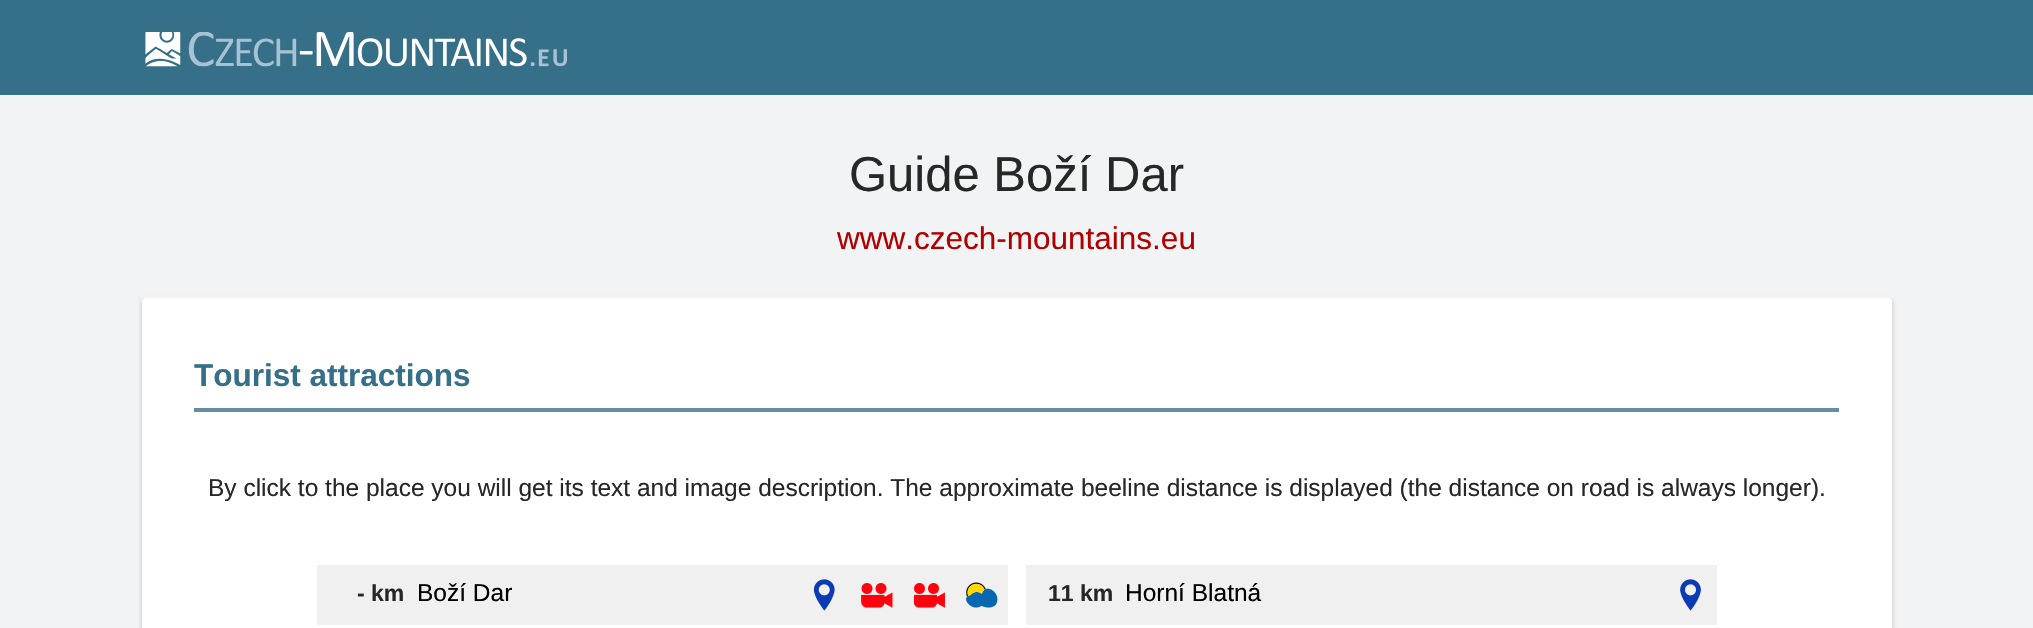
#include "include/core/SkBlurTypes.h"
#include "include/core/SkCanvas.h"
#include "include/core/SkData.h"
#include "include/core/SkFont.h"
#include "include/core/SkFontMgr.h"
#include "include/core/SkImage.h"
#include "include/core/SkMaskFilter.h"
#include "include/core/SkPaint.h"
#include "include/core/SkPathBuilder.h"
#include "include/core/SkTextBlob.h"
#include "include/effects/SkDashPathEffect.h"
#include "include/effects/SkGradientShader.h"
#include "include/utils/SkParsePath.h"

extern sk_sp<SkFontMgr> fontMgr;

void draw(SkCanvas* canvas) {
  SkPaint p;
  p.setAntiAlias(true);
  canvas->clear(SkColorSetRGB(241, 243, 245));
  p.setColor(SkColorSetRGB(53, 111, 136));
  canvas->drawRect(SkRect::MakeLTRB(0, 0, 2033, 95), p);
  canvas->drawImageRect(SkImages::DeferredFromEncodedData(SkData::MakeFromFileName("images/1.png")), SkRect::MakeLTRB(145, 32, 567, 67), SkSamplingOptions());
  p.setColor(SkColorSetARGB(51, 0, 0, 0));
  p.setMaskFilter(SkMaskFilter::MakeBlur(kNormal_SkBlurStyle, 2.5f));
  canvas->drawRoundRect(SkRect::MakeLTRB(142, 299, 1892, 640), 4, 4, p);
  p.setMaskFilter(nullptr);
  p.setColor(SkColorSetRGB(241, 243, 245));
  canvas->drawRect(SkRect::MakeLTRB(141, 295, 1893, 298), p);
  p.setColor(SK_ColorWHITE);
  canvas->drawRoundRect(SkRect::MakeLTRB(142, 298, 1892, 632), 4, 4, p);
  p.setColor(SkColorSetRGB(100, 141, 163));
  canvas->drawRect(SkRect::MakeLTRB(194, 408, 1839, 412), p);
  p.setColor(SkColorSetRGB(240, 240, 240));
  canvas->drawRect(SkRect::MakeLTRB(317, 565, 1008, 625), p);
  canvas->drawImageRect(SkImages::DeferredFromEncodedData(SkData::MakeFromFileName("images/2.png")), SkRect::MakeLTRB(813, 579, 835, 611), SkSamplingOptions());
  canvas->drawImageRect(SkImages::DeferredFromEncodedData(SkData::MakeFromFileName("images/3.png")), SkRect::MakeLTRB(861, 583, 893, 608), SkSamplingOptions());
  canvas->drawImageRect(SkImages::DeferredFromEncodedData(SkData::MakeFromFileName("images/4.png")), SkRect::MakeLTRB(914, 583, 945, 608), SkSamplingOptions());
  canvas->drawImageRect(SkImages::DeferredFromEncodedData(SkData::MakeFromFileName("images/5.png")), SkRect::MakeLTRB(966, 582, 998, 608), SkSamplingOptions());
  canvas->drawRect(SkRect::MakeLTRB(1026, 565, 1717, 625), p);
  canvas->drawImageRect(SkImages::DeferredFromEncodedData(SkData::MakeFromFileName("images/6.png")), SkRect::MakeLTRB(1680, 579, 1701, 611), SkSamplingOptions());
  SkFont font1(fontMgr->matchFamilyStyle("Liberation Sans", SkFontStyle::Normal()), 49);
  font1.setSubpixel(true);
  p.setColor(SkColorSetRGB(38, 39, 39));
  canvas->drawString("Guide Boží Dar", 849, 191, font1, p);
  SkFont font2(fontMgr->matchFamilyStyle("Liberation Sans", SkFontStyle::Normal()), 31.5f);
  font2.setSubpixel(true);
  p.setColor(SkColorSetRGB(176, 0, 0));
  canvas->drawString("www.czech-mountains.eu", 837, 249, font2, p);
  SkFont font3(fontMgr->matchFamilyStyle("Liberation Sans", SkFontStyle::Bold()), 31.5f);
  font3.setSubpixel(true);
  p.setColor(SkColorSetRGB(53, 111, 136));
  canvas->drawString("Tourist attractions", 194, 386, font3, p);
  SkFont font4(fontMgr->matchFamilyStyle("Liberation Sans", SkFontStyle::Normal()), 24.5f);
  font4.setSubpixel(true);
  p.setColor(SkColorSetRGB(38, 39, 39));
  canvas->drawString("By click to the place you will get its text and image description. The approximate beeline distance is displayed (the distance on road is always longer).", 208, 496, font4, p);
  SkFont font5(fontMgr->matchFamilyStyle("Liberation Sans", SkFontStyle::Bold()), 23);
  font5.setSubpixel(true);
  canvas->drawString("- km", 357, 601, font5, p);
  p.setColor(SK_ColorBLACK);
  canvas->drawString("Boží Dar", 417, 601, font4, p);
  p.setColor(SkColorSetRGB(38, 39, 39));
  canvas->drawString("11 km", 1048, 601, font5, p);
  p.setColor(SK_ColorBLACK);
  canvas->drawString("Horní Blatná", 1125, 601, font4, p);
}
